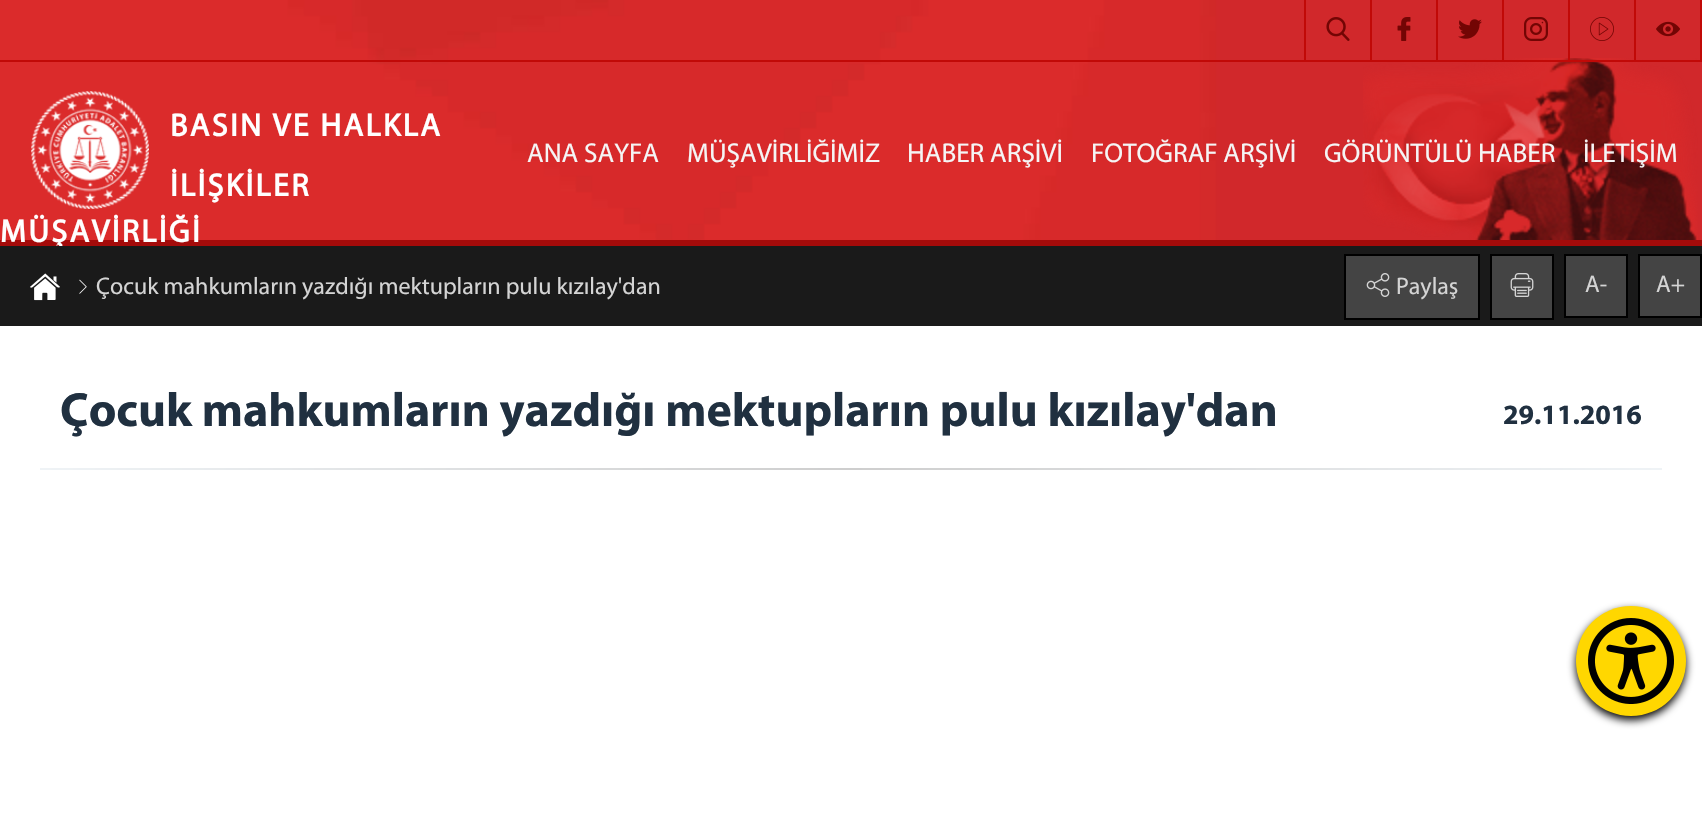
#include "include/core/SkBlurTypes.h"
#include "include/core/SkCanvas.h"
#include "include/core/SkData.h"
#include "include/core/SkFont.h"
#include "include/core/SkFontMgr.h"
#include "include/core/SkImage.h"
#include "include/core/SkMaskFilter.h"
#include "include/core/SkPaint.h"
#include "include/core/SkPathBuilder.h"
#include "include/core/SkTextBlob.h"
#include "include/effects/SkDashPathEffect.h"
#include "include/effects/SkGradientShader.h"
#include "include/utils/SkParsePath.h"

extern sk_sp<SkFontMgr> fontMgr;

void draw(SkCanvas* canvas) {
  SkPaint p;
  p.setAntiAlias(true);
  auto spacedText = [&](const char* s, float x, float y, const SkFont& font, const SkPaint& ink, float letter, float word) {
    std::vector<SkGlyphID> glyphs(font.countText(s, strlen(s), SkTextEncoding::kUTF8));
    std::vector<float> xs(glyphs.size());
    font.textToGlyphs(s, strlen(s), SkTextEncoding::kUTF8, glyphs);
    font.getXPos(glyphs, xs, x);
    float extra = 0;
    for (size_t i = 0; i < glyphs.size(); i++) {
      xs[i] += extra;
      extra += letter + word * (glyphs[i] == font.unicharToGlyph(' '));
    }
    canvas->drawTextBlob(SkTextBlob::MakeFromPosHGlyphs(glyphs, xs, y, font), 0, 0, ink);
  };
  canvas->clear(SK_ColorWHITE);
  canvas->drawImageRect(SkImages::DeferredFromEncodedData(SkData::MakeFromFileName("images/1.png")), SkRect::MakeLTRB(0, 0, 1702, 240), SkSamplingOptions());
  p.setColor(SkColorSetRGB(164, 11, 10));
  canvas->drawRect(SkRect::MakeLTRB(0, 240, 1702, 246), p);
  canvas->drawImageRect(SkImages::DeferredFromEncodedData(SkData::MakeFromFileName("images/2.png")), SkRect::MakeLTRB(1363, 58, 1698, 240), SkSamplingOptions());
  p.setColor(SkColorSetRGB(193, 9, 7));
  canvas->drawRect(SkRect::MakeLTRB(0, 60, 1702, 62), p);
  canvas->drawRect(SkRect::MakeLTRB(1304, 0, 1306, 62), p);
  canvas->drawImageRect(SkImages::DeferredFromEncodedData(SkData::MakeFromFileName("images/3.png")), SkRect::MakeLTRB(1326, 17, 1350, 41), SkSamplingOptions());
  canvas->drawRect(SkRect::MakeLTRB(1436, 0, 1438, 62), p);
  canvas->drawRect(SkRect::MakeLTRB(1370, 0, 1372, 62), p);
  canvas->drawImageRect(SkImages::DeferredFromEncodedData(SkData::MakeFromFileName("images/4.png")), SkRect::MakeLTRB(1397, 17, 1411, 41), SkSamplingOptions());
  canvas->drawRect(SkRect::MakeLTRB(1502, 0, 1504, 62), p);
  canvas->drawImageRect(SkImages::DeferredFromEncodedData(SkData::MakeFromFileName("images/5.png")), SkRect::MakeLTRB(1458, 19, 1482, 39), SkSamplingOptions());
  canvas->drawRect(SkRect::MakeLTRB(1568, 0, 1570, 62), p);
  canvas->drawImageRect(SkImages::DeferredFromEncodedData(SkData::MakeFromFileName("images/6.png")), SkRect::MakeLTRB(1524, 17, 1548, 41), SkSamplingOptions());
  canvas->drawRect(SkRect::MakeLTRB(1634, 0, 1636, 62), p);
  canvas->drawImageRect(SkImages::DeferredFromEncodedData(SkData::MakeFromFileName("images/7.png")), SkRect::MakeLTRB(1590, 17, 1614, 41), SkSamplingOptions());
  canvas->drawRect(SkRect::MakeLTRB(1700, 0, 1702, 62), p);
  canvas->drawImageRect(SkImages::DeferredFromEncodedData(SkData::MakeFromFileName("images/8.png")), SkRect::MakeLTRB(1656, 21, 1680, 37), SkSamplingOptions());
  canvas->drawImageRect(SkImages::DeferredFromEncodedData(SkData::MakeFromFileName("images/9.png")), SkRect::MakeLTRB(31, 91, 149, 209), SkSamplingOptions());
  {
    const SkColor colors[] = {SkColorSetRGB(239, 243, 246), SkColorSetRGB(206, 206, 206), SkColorSetRGB(239, 243, 246)};
    const float stops[] = {0, 0.5f, 1};
    const SkPoint ends[] = {{40, 469}, {1662, 469}};
    p.setShader(SkGradientShader::MakeLinear(ends, colors, stops, 3, SkTileMode::kClamp));
    p.setAlpha(255);
  }
  canvas->drawRect(SkRect::MakeLTRB(40, 468, 1662, 470), p);
  p.setShader(nullptr);
  p.setColor(SK_ColorBLACK);
  p.setMaskFilter(SkMaskFilter::MakeBlur(kNormal_SkBlurStyle, 4));
  canvas->drawRoundRect(SkRect::MakeLTRB(1576, 610, 1686, 720), 55, 55, p);
  p.setMaskFilter(nullptr);
  p.setColor(SkColorSetRGB(255, 215, 0));
  canvas->drawCircle(1631, 661, 55, p);
  canvas->drawImageRect(SkImages::DeferredFromEncodedData(SkData::MakeFromFileName("images/14.png")), SkRect::MakeLTRB(1588, 618, 1674, 704), SkSamplingOptions());
  SkFont font1(fontMgr->matchFamilyStyle("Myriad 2", SkFontStyle::Bold()), 32);
  font1.setSubpixel(true);
  p.setColor(SK_ColorWHITE);
  spacedText("BASIN VE HALKLA", 170, 136, font1, p, 2.4f, 0);
  spacedText("İLİŞKİLER", 170, 196, font1, p, 2.4f, 0);
  spacedText("MÜŞAVİRLİĞİ", 0, 242, font1, p, 2.4f, 0);
  SkFont font2(fontMgr->matchFamilyStyle("Myriad", SkFontStyle::Normal()), 27.25f);
  font2.setSubpixel(true);
  p.setColor(SkColorSetRGB(245, 245, 245));
  canvas->drawString("ANA SAYFA", 527, 162, font2, p);
  canvas->drawString("MÜŞAVİRLİĞİMİZ", 687, 162, font2, p);
  canvas->drawString("HABER ARŞİVİ", 907, 162, font2, p);
  canvas->drawString("FOTOĞRAF ARŞİVİ", 1091, 162, font2, p);
  canvas->drawString("GÖRÜNTÜLÜ HABER", 1324, 162, font2, p);
  canvas->drawString("İLETİŞİM", 1583, 162, font2, p);
  p.setColor(SkColorSetRGB(26, 26, 26));
  canvas->drawRect(SkRect::MakeLTRB(0, 246, 1702, 326), p);
  canvas->drawImageRect(SkImages::DeferredFromEncodedData(SkData::MakeFromFileName("images/10.png")), SkRect::MakeLTRB(30, 273, 60, 301), SkSamplingOptions());
  canvas->drawImageRect(SkImages::DeferredFromEncodedData(SkData::MakeFromFileName("images/11.png")), SkRect::MakeLTRB(79, 279, 87, 294), SkSamplingOptions());
  SkFont font3(fontMgr->matchFamilyStyle("Myriad", SkFontStyle::Normal()), 24);
  font3.setSubpixel(true);
  p.setColor(SkColorSetRGB(212, 212, 212));
  canvas->drawString("Çocuk mahkumların yazdığı mektupların pulu kızılay'dan", 96, 294, font3, p);
  p.setColor(SkColorSetRGB(68, 68, 68));
  canvas->drawRect(SkRect::MakeLTRB(1345, 255, 1479, 319), p);
  p.setStyle(SkPaint::kStroke_Style);
  p.setStrokeWidth(2);
  p.setColor(SK_ColorBLACK);
  canvas->drawRect(SkRect::MakeLTRB(1345, 255, 1479, 319), p);
  canvas->drawImageRect(SkImages::DeferredFromEncodedData(SkData::MakeFromFileName("images/12.png")), SkRect::MakeLTRB(1366, 273, 1390, 297), SkSamplingOptions());
  p.setStyle(SkPaint::kFill_Style);
  p.setColor(SkColorSetRGB(212, 212, 212));
  canvas->drawString("Paylaş", 1396, 294, font3, p);
  p.setColor(SkColorSetRGB(68, 68, 68));
  canvas->drawRect(SkRect::MakeLTRB(1491, 255, 1553, 319), p);
  p.setStyle(SkPaint::kStroke_Style);
  p.setColor(SK_ColorBLACK);
  canvas->drawRect(SkRect::MakeLTRB(1491, 255, 1553, 319), p);
  canvas->drawImageRect(SkImages::DeferredFromEncodedData(SkData::MakeFromFileName("images/13.png")), SkRect::MakeLTRB(1510, 273, 1534, 297), SkSamplingOptions());
  p.setStyle(SkPaint::kFill_Style);
  p.setColor(SkColorSetRGB(68, 68, 68));
  canvas->drawRect(SkRect::MakeLTRB(1565, 255, 1627, 317), p);
  p.setStyle(SkPaint::kStroke_Style);
  p.setColor(SK_ColorBLACK);
  canvas->drawRect(SkRect::MakeLTRB(1565, 255, 1627, 317), p);
  p.setStyle(SkPaint::kFill_Style);
  p.setColor(SkColorSetRGB(212, 212, 212));
  canvas->drawString("A-", 1585, 292, font3, p);
  p.setColor(SkColorSetRGB(68, 68, 68));
  canvas->drawRect(SkRect::MakeLTRB(1639, 255, 1701, 317), p);
  p.setStyle(SkPaint::kStroke_Style);
  p.setColor(SK_ColorBLACK);
  canvas->drawRect(SkRect::MakeLTRB(1639, 255, 1701, 317), p);
  p.setStyle(SkPaint::kFill_Style);
  p.setColor(SkColorSetRGB(212, 212, 212));
  canvas->drawString("A+", 1656, 292, font3, p);
  SkFont font4(fontMgr->matchFamilyStyle("Myriad", SkFontStyle::Bold()), 48);
  font4.setSubpixel(true);
  p.setColor(SkColorSetRGB(32, 48, 64));
  canvas->drawString("Çocuk mahkumların yazdığı mektupların pulu kızılay'dan", 60, 426, font4, p);
  SkFont font5(fontMgr->matchFamilyStyle("Myriad", SkFontStyle::Bold()), 28);
  font5.setSubpixel(true);
  canvas->drawString("29.11.2016", 1503, 424, font5, p);
}
